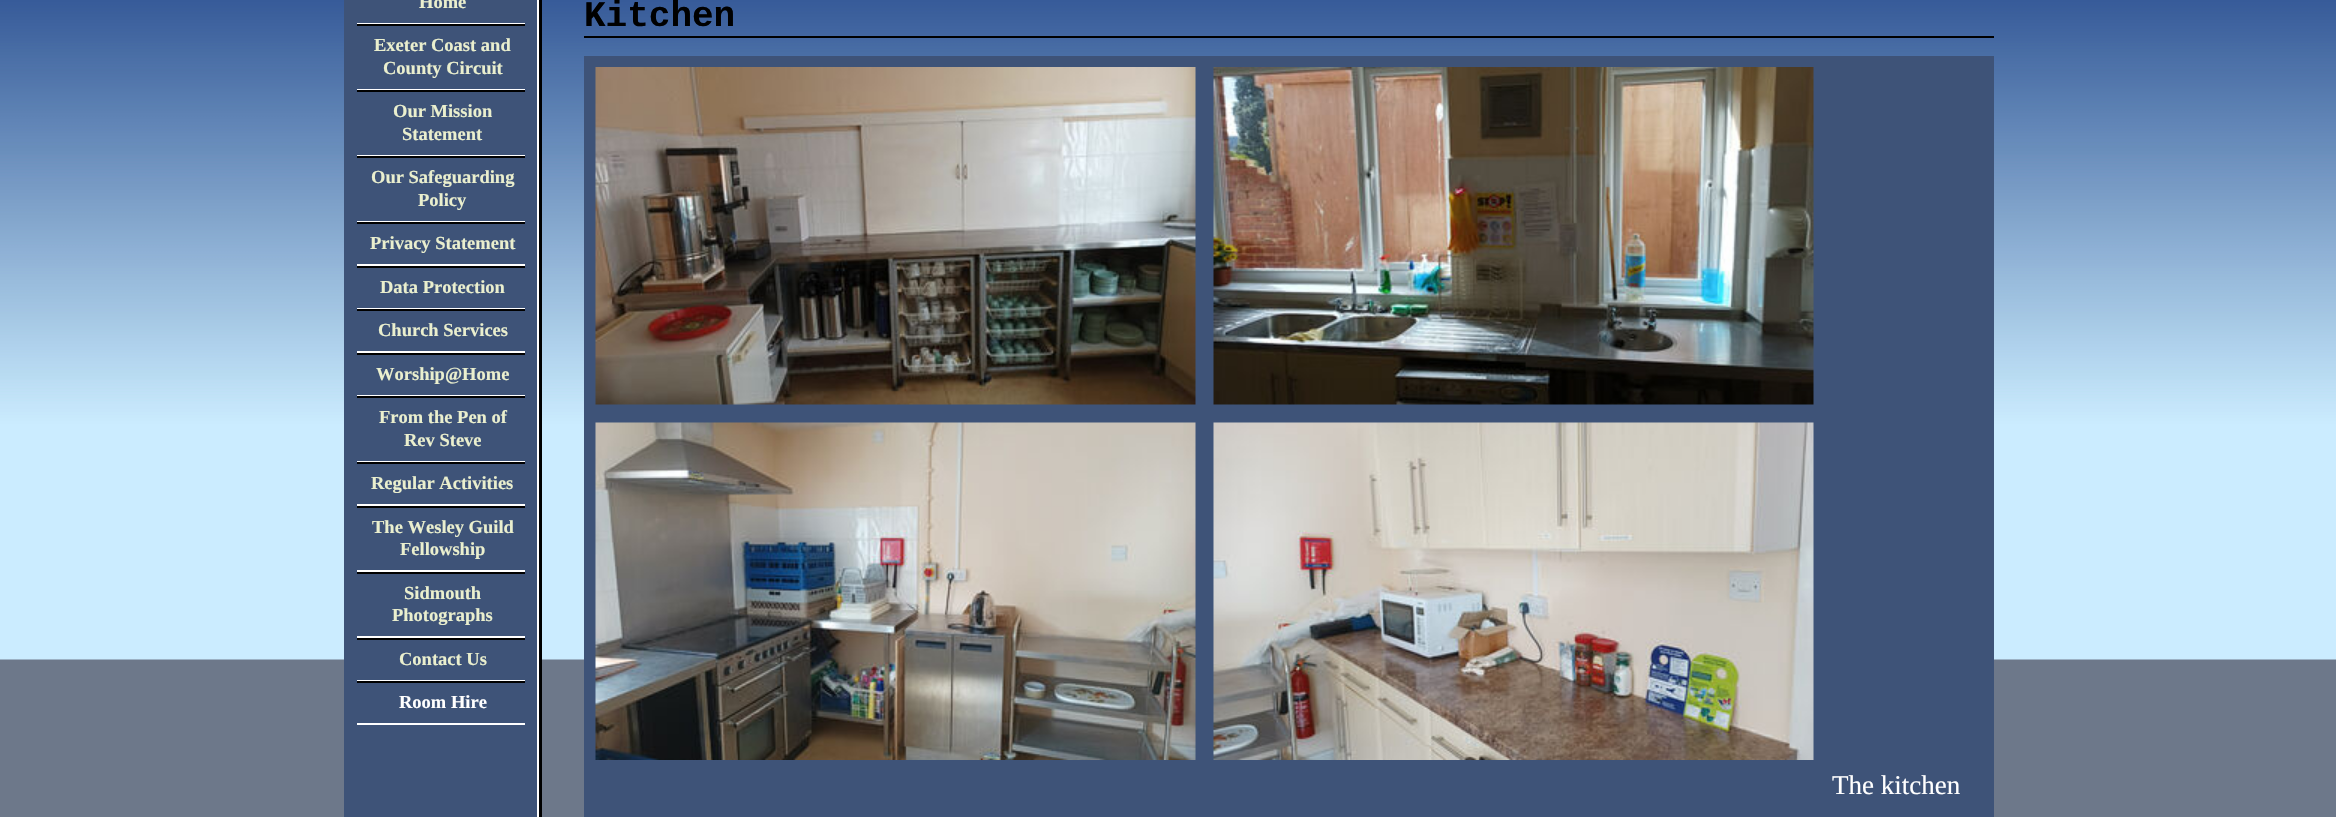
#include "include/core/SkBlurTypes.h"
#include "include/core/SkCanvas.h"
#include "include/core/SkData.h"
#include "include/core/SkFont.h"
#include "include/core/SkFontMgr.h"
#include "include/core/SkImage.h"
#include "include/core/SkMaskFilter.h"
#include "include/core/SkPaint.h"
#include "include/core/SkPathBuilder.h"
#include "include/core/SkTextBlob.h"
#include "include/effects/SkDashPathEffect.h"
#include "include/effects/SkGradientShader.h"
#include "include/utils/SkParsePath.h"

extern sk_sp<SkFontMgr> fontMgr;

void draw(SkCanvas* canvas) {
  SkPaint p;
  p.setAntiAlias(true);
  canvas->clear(SkColorSetRGB(109, 120, 138));
  canvas->drawImageRect(SkImages::DeferredFromEncodedData(SkData::MakeFromFileName("images/1.png")), SkRect::MakeLTRB(0, 0, 2336, 660), SkSamplingOptions());
  p.setColor(SkColorSetRGB(62, 83, 120));
  canvas->drawRect(SkRect::MakeLTRB(344, 0, 537, 817), p);
  p.setColor(SK_ColorBLACK);
  canvas->drawRect(SkRect::MakeLTRB(539, 0, 542, 817), p);
  p.setColor(SK_ColorWHITE);
  canvas->drawRect(SkRect::MakeLTRB(537, 0, 539, 817), p);
  canvas->drawRect(SkRect::MakeLTRB(357, 23, 525, 24), p);
  p.setColor(SK_ColorBLACK);
  canvas->drawRect(SkRect::MakeLTRB(357, 24, 525, 26), p);
  p.setColor(SK_ColorWHITE);
  canvas->drawRect(SkRect::MakeLTRB(357, 89, 525, 90), p);
  p.setColor(SK_ColorBLACK);
  canvas->drawRect(SkRect::MakeLTRB(357, 90, 525, 92), p);
  p.setColor(SK_ColorWHITE);
  canvas->drawRect(SkRect::MakeLTRB(357, 155, 525, 156), p);
  p.setColor(SK_ColorBLACK);
  canvas->drawRect(SkRect::MakeLTRB(357, 156, 525, 158), p);
  p.setColor(SK_ColorWHITE);
  canvas->drawRect(SkRect::MakeLTRB(357, 221, 525, 222), p);
  p.setColor(SK_ColorBLACK);
  canvas->drawRect(SkRect::MakeLTRB(357, 222, 525, 224), p);
  p.setColor(SK_ColorWHITE);
  canvas->drawRect(SkRect::MakeLTRB(357, 264, 525, 266), p);
  p.setColor(SK_ColorBLACK);
  canvas->drawRect(SkRect::MakeLTRB(357, 266, 525, 268), p);
  p.setColor(SK_ColorWHITE);
  canvas->drawRect(SkRect::MakeLTRB(357, 308, 525, 309), p);
  p.setColor(SK_ColorBLACK);
  canvas->drawRect(SkRect::MakeLTRB(357, 309, 525, 311), p);
  p.setColor(SK_ColorWHITE);
  canvas->drawRect(SkRect::MakeLTRB(357, 351, 525, 353), p);
  p.setColor(SK_ColorBLACK);
  canvas->drawRect(SkRect::MakeLTRB(357, 353, 525, 355), p);
  p.setColor(SK_ColorWHITE);
  canvas->drawRect(SkRect::MakeLTRB(357, 395, 525, 396), p);
  p.setColor(SK_ColorBLACK);
  canvas->drawRect(SkRect::MakeLTRB(357, 396, 525, 398), p);
  p.setColor(SK_ColorWHITE);
  canvas->drawRect(SkRect::MakeLTRB(357, 461, 525, 462), p);
  p.setColor(SK_ColorBLACK);
  canvas->drawRect(SkRect::MakeLTRB(357, 462, 525, 464), p);
  p.setColor(SK_ColorWHITE);
  canvas->drawRect(SkRect::MakeLTRB(357, 504, 525, 506), p);
  p.setColor(SK_ColorBLACK);
  canvas->drawRect(SkRect::MakeLTRB(357, 506, 525, 508), p);
  p.setColor(SK_ColorWHITE);
  canvas->drawRect(SkRect::MakeLTRB(357, 570, 525, 572), p);
  p.setColor(SK_ColorBLACK);
  canvas->drawRect(SkRect::MakeLTRB(357, 572, 525, 574), p);
  p.setColor(SK_ColorWHITE);
  canvas->drawRect(SkRect::MakeLTRB(357, 636, 525, 638), p);
  p.setColor(SK_ColorBLACK);
  canvas->drawRect(SkRect::MakeLTRB(357, 638, 525, 640), p);
  p.setColor(SK_ColorWHITE);
  canvas->drawRect(SkRect::MakeLTRB(357, 680, 525, 681), p);
  p.setColor(SK_ColorBLACK);
  canvas->drawRect(SkRect::MakeLTRB(357, 681, 525, 683), p);
  p.setColor(SK_ColorWHITE);
  canvas->drawRect(SkRect::MakeLTRB(357, 723, 525, 725), p);
  p.setColor(SK_ColorBLACK);
  canvas->drawRect(SkRect::MakeLTRB(584, 36, 1994, 38), p);
  p.setColor(SkColorSetRGB(62, 83, 120));
  canvas->drawRect(SkRect::MakeLTRB(584, 56, 1994, 817), p);
  canvas->drawImageRect(SkImages::DeferredFromEncodedData(SkData::MakeFromFileName("images/2.png")), SkRect::MakeLTRB(595, 67, 1196, 405), SkSamplingOptions());
  canvas->drawImageRect(SkImages::DeferredFromEncodedData(SkData::MakeFromFileName("images/3.png")), SkRect::MakeLTRB(1213, 67, 1814, 405), SkSamplingOptions());
  canvas->drawImageRect(SkImages::DeferredFromEncodedData(SkData::MakeFromFileName("images/4.png")), SkRect::MakeLTRB(595, 422, 1196, 760), SkSamplingOptions());
  canvas->drawImageRect(SkImages::DeferredFromEncodedData(SkData::MakeFromFileName("images/5.png")), SkRect::MakeLTRB(1213, 422, 1814, 760), SkSamplingOptions());
  SkFont font1(fontMgr->matchFamilyStyle("Liberation Serif", SkFontStyle::Bold()), 18.5f);
  font1.setSubpixel(true);
  p.setColor(SkColorSetRGB(234, 239, 206));
  canvas->drawString("Home", 419, 8, font1, p);
  canvas->drawString("Exeter Coast and", 374, 51, font1, p);
  canvas->drawString("County Circuit", 383, 74, font1, p);
  canvas->drawString("Our Mission", 393, 117, font1, p);
  canvas->drawString("Statement", 402, 140, font1, p);
  canvas->drawString("Our Safeguarding", 371, 183, font1, p);
  canvas->drawString("Policy", 418, 206, font1, p);
  canvas->drawString("Privacy Statement", 370, 249, font1, p);
  canvas->drawString("Data Protection", 380, 293, font1, p);
  canvas->drawString("Church Services", 378, 336, font1, p);
  canvas->drawString("Worship@Home", 376, 380, font1, p);
  canvas->drawString("From the Pen of", 379, 423, font1, p);
  canvas->drawString("Rev Steve", 404, 446, font1, p);
  canvas->drawString("Regular Activities", 371, 489, font1, p);
  canvas->drawString("The Wesley Guild", 372, 533, font1, p);
  canvas->drawString("Fellowship", 400, 555, font1, p);
  canvas->drawString("Sidmouth", 404, 599, font1, p);
  canvas->drawString("Photographs", 392, 621, font1, p);
  canvas->drawString("Contact Us", 399, 665, font1, p);
  p.setColor(SK_ColorWHITE);
  canvas->drawString("Room Hire", 399, 708, font1, p);
  SkFont font2(fontMgr->matchFamilyStyle("Liberation Mono", SkFontStyle::Bold()), 36);
  font2.setSubpixel(true);
  p.setColor(SK_ColorBLACK);
  canvas->drawString("Kitchen", 584, 26, font2, p);
  SkFont font3(fontMgr->matchFamilyStyle("Liberation Serif", SkFontStyle::Normal()), 27);
  font3.setSubpixel(true);
  p.setColor(SK_ColorWHITE);
  canvas->drawString("The kitchen", 1832, 794, font3, p);
}
